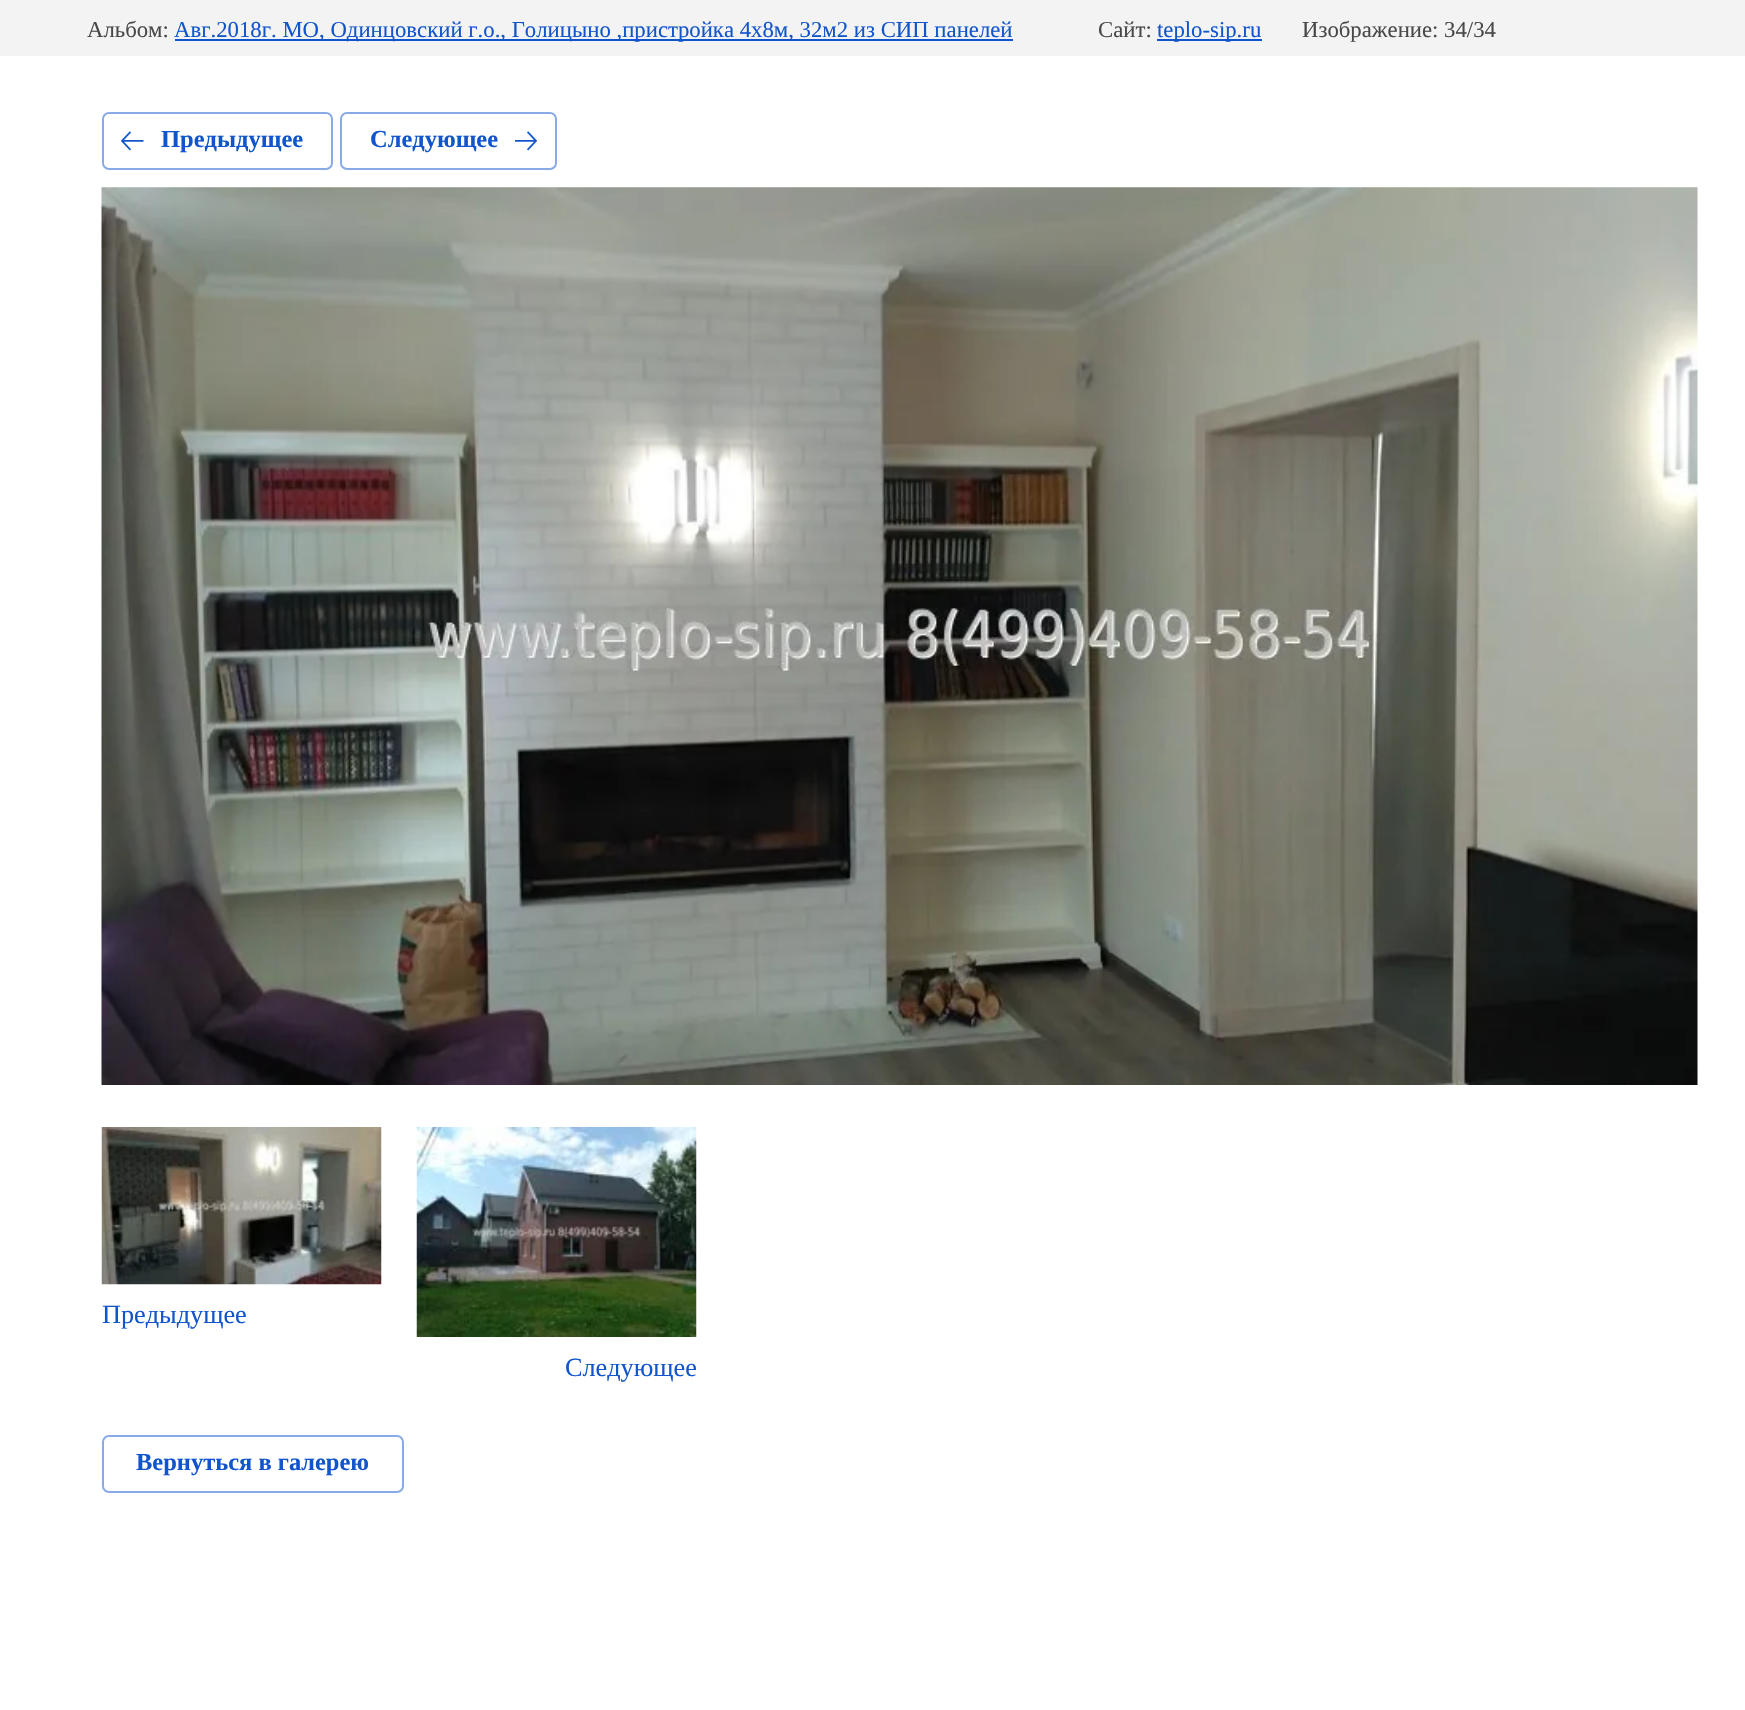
#include "include/core/SkBlurTypes.h"
#include "include/core/SkCanvas.h"
#include "include/core/SkData.h"
#include "include/core/SkFont.h"
#include "include/core/SkFontMgr.h"
#include "include/core/SkImage.h"
#include "include/core/SkMaskFilter.h"
#include "include/core/SkPaint.h"
#include "include/core/SkPathBuilder.h"
#include "include/core/SkTextBlob.h"
#include "include/effects/SkDashPathEffect.h"
#include "include/effects/SkGradientShader.h"
#include "include/utils/SkParsePath.h"

extern sk_sp<SkFontMgr> fontMgr;

void draw(SkCanvas* canvas) {
  SkPaint p;
  p.setAntiAlias(true);
  canvas->clear(SK_ColorWHITE);
  p.setColor(SkColorSetRGB(243, 243, 243));
  canvas->drawRect(SkRect::MakeLTRB(0, 0, 1745, 56), p);
  p.setColor(SkColorSetRGB(17, 85, 204));
  canvas->drawRect(SkRect::MakeLTRB(175, 39, 1013, 41), p);
  canvas->drawRect(SkRect::MakeLTRB(1157, 39, 1262, 41), p);
  p.setStyle(SkPaint::kStroke_Style);
  p.setStrokeWidth(2);
  p.setColor(SkColorSetRGB(136, 170, 230));
  canvas->drawRoundRect(SkRect::MakeLTRB(103, 113, 332, 169), 6, 6, p);
  canvas->drawImageRect(SkImages::DeferredFromEncodedData(SkData::MakeFromFileName("images/1.png")), SkRect::MakeLTRB(121, 131, 144, 151), SkSamplingOptions());
  canvas->drawRoundRect(SkRect::MakeLTRB(341, 113, 556, 169), 6, 6, p);
  canvas->drawImageRect(SkImages::DeferredFromEncodedData(SkData::MakeFromFileName("images/2.png")), SkRect::MakeLTRB(515, 131, 537, 151), SkSamplingOptions());
  canvas->drawImageRect(SkImages::DeferredFromEncodedData(SkData::MakeFromFileName("images/3.png")), SkRect::MakeLTRB(101, 187, 1698, 1085), SkSamplingOptions());
  canvas->drawImageRect(SkImages::DeferredFromEncodedData(SkData::MakeFromFileName("images/4.png")), SkRect::MakeLTRB(101, 1127, 382, 1285), SkSamplingOptions());
  canvas->drawImageRect(SkImages::DeferredFromEncodedData(SkData::MakeFromFileName("images/5.png")), SkRect::MakeLTRB(416, 1127, 697, 1337), SkSamplingOptions());
  canvas->drawRoundRect(SkRect::MakeLTRB(103, 1436, 403, 1492), 6, 6, p);
  SkFont font1(fontMgr->matchFamilyStyle("Liberation Serif", SkFontStyle::Normal()), 22.75f);
  font1.setSubpixel(true);
  p.setStyle(SkPaint::kFill_Style);
  p.setColor(SkColorSetRGB(72, 72, 72));
  canvas->drawString("Альбом:", 87, 37, font1, p);
  p.setColor(SkColorSetRGB(17, 85, 204));
  canvas->drawString("Авг.2018г. МО, Одинцовский г.о., Голицыно ,пристройка 4х8м, 32м2 из СИП панелей", 174, 37, font1, p);
  p.setColor(SkColorSetRGB(72, 72, 72));
  canvas->drawString("Сайт:", 1098, 37, font1, p);
  p.setColor(SkColorSetRGB(17, 85, 204));
  canvas->drawString("teplo-sip.ru", 1157, 37, font1, p);
  p.setColor(SkColorSetRGB(72, 72, 72));
  canvas->drawString("Изображение: 34/34", 1302, 37, font1, p);
  SkFont font2(fontMgr->matchFamilyStyle("Liberation Serif", SkFontStyle::Bold()), 24.5f);
  font2.setSubpixel(true);
  p.setColor(SkColorSetRGB(17, 85, 204));
  canvas->drawString("Предыдущее", 161, 147, font2, p);
  canvas->drawString("Следующее", 370, 147, font2, p);
  SkFont font3(fontMgr->matchFamilyStyle("Liberation Serif", SkFontStyle::Normal()), 26.25f);
  font3.setSubpixel(true);
  canvas->drawString("Предыдущее", 102, 1323, font3, p);
  canvas->drawString("Следующее", 565, 1376, font3, p);
  canvas->drawString("Вернуться в галерею", 136, 1470, font2, p);
}
